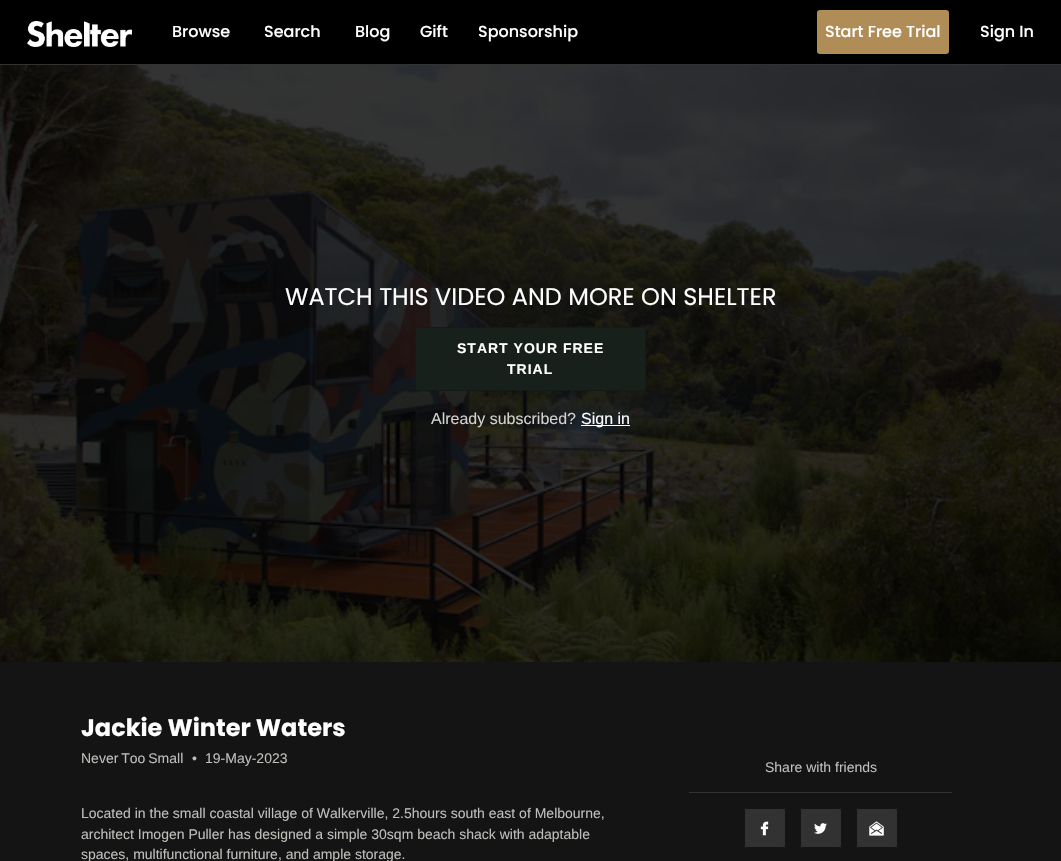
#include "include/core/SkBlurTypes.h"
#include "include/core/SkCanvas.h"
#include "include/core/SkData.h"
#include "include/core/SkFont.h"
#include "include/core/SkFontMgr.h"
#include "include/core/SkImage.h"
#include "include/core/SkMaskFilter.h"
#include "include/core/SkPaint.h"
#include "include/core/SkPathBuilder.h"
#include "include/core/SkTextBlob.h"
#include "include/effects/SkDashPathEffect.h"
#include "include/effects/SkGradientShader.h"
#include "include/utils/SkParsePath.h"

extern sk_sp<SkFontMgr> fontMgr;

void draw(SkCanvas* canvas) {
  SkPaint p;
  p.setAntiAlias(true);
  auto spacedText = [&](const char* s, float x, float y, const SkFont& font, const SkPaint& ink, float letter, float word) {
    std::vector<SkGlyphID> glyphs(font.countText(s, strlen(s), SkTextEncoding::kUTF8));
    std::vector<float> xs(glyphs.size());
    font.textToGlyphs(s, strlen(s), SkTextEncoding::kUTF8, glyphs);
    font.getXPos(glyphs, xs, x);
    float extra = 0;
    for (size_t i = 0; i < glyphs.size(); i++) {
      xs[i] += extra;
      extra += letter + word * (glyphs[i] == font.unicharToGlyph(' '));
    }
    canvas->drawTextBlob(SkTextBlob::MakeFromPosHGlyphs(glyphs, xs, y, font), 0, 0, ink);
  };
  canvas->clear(SkColorSetRGB(20, 20, 20));
  p.setColor(SK_ColorBLACK);
  canvas->drawRect(SkRect::MakeLTRB(0, 0, 1061, 64), p);
  p.setColor(SkColorSetRGB(50, 50, 50));
  canvas->drawRect(SkRect::MakeLTRB(0, 64, 1061, 65), p);
  canvas->drawImageRect(SkImages::DeferredFromEncodedData(SkData::MakeFromFileName("images/1.png")), SkRect::MakeLTRB(27, 21, 132, 47), SkSamplingOptions());
  p.setColor(SkColorSetRGB(176, 141, 87));
  canvas->drawRoundRect(SkRect::MakeLTRB(817, 10, 949, 54), 3, 3, p);
  canvas->drawImageRect(SkImages::DeferredFromEncodedData(SkData::MakeFromFileName("images/2.png")), SkRect::MakeLTRB(0, 65, 1061, 662), SkSamplingOptions());
  p.setColor(SkColorSetRGB(23, 32, 27));
  canvas->drawRoundRect(SkRect::MakeLTRB(415.5f, 327.5f, 645.5f, 390.5f), 2.5f, 2.5f, p);
  p.setStyle(SkPaint::kStroke_Style);
  p.setStrokeWidth(1);
  p.setColor(SkColorSetRGB(20, 27, 23));
  canvas->drawRoundRect(SkRect::MakeLTRB(415.5f, 327.5f, 645.5f, 390.5f), 2.5f, 2.5f, p);
  p.setStyle(SkPaint::kFill_Style);
  p.setColor(SK_ColorWHITE);
  canvas->drawRect(SkRect::MakeLTRB(581, 425, 630, 426), p);
  p.setColor(SkColorSetRGB(50, 50, 50));
  canvas->drawRect(SkRect::MakeLTRB(689, 792, 952, 793), p);
  canvas->drawRoundRect(SkRect::MakeLTRB(744, 808, 786, 848), 3, 3, p);
  canvas->drawImageRect(SkImages::DeferredFromEncodedData(SkData::MakeFromFileName("images/3.png")), SkRect::MakeLTRB(760, 821, 769, 836), SkSamplingOptions());
  p.setStyle(SkPaint::kStroke_Style);
  p.setColor(SkColorSetRGB(20, 20, 20));
  canvas->drawRoundRect(SkRect::MakeLTRB(744.5f, 808.5f, 785.5f, 847.5f), 2.5f, 2.5f, p);
  p.setStyle(SkPaint::kFill_Style);
  p.setColor(SkColorSetRGB(50, 50, 50));
  canvas->drawRoundRect(SkRect::MakeLTRB(800, 808, 842, 848), 3, 3, p);
  canvas->drawImageRect(SkImages::DeferredFromEncodedData(SkData::MakeFromFileName("images/4.png")), SkRect::MakeLTRB(814, 823, 827, 834), SkSamplingOptions());
  p.setStyle(SkPaint::kStroke_Style);
  p.setColor(SkColorSetRGB(20, 20, 20));
  canvas->drawRoundRect(SkRect::MakeLTRB(800.5f, 808.5f, 841.5f, 847.5f), 2.5f, 2.5f, p);
  p.setStyle(SkPaint::kFill_Style);
  p.setColor(SkColorSetRGB(50, 50, 50));
  canvas->drawRoundRect(SkRect::MakeLTRB(856, 808, 898, 848), 3, 3, p);
  canvas->drawImageRect(SkImages::DeferredFromEncodedData(SkData::MakeFromFileName("images/5.png")), SkRect::MakeLTRB(869, 821, 884, 836), SkSamplingOptions());
  p.setStyle(SkPaint::kStroke_Style);
  p.setColor(SkColorSetRGB(20, 20, 20));
  canvas->drawRoundRect(SkRect::MakeLTRB(856.5f, 808.5f, 897.5f, 847.5f), 2.5f, 2.5f, p);
  SkFont font1(fontMgr->matchFamilyStyle("Poppins", SkFontStyle(500, SkFontStyle::kNormal_Width, SkFontStyle::kUpright_Slant)), 16);
  font1.setSubpixel(true);
  p.setStyle(SkPaint::kFill_Style);
  p.setColor(SK_ColorWHITE);
  canvas->drawString("Browse", 172, 37, font1, p);
  canvas->drawString("Search", 264, 37, font1, p);
  canvas->drawString("Blog", 355, 37, font1, p);
  canvas->drawString("Gift", 420, 37, font1, p);
  canvas->drawString("Sponsorship", 478, 37, font1, p);
  canvas->drawString("Start Free Trial", 825, 37, font1, p);
  canvas->drawString("Sign In", 980, 37, font1, p);
  SkFont font2(fontMgr->matchFamilyStyle("Poppins", SkFontStyle::Normal()), 24);
  font2.setSubpixel(true);
  canvas->drawString("WATCH THIS VIDEO AND MORE ON SHELTER", 285, 305, font2, p);
  SkFont font3(fontMgr->matchFamilyStyle("Liberation Sans", SkFontStyle::Bold()), 14);
  font3.setSubpixel(true);
  spacedText("START YOUR FREE", 457, 353, font3, p, 1, 0);
  spacedText("TRIAL", 507, 374, font3, p, 1, 0);
  SkFont font4(fontMgr->matchFamilyStyle("Liberation Sans", SkFontStyle::Normal()), 16);
  font4.setSubpixel(true);
  p.setColor(SkColorSetRGB(209, 209, 208));
  canvas->drawString("Already subscribed?", 431, 424, font4, p);
  p.setColor(SK_ColorWHITE);
  canvas->drawString("Sign in", 581, 424, font4, p);
  SkFont font5(fontMgr->matchFamilyStyle("Poppins", SkFontStyle::Bold()), 24);
  font5.setSubpixel(true);
  canvas->drawString("Jackie Winter Waters", 81, 736, font5, p);
  SkFont font6(fontMgr->matchFamilyStyle("Liberation Sans", SkFontStyle::Normal()), 14);
  font6.setSubpixel(true);
  p.setColor(SkColorSetRGB(190, 190, 187));
  spacedText("Never Too Small", 81, 763, font6, p, 0, -1);
  canvas->drawString("•", 192, 763, font6, p);
  canvas->drawString("19-May-2023", 205, 763, font6, p);
  canvas->drawString("Located in the small coastal village of Walkerville, 2.5hours south east of Melbourne,", 81, 818, font6, p);
  canvas->drawString("architect Imogen Puller has designed a simple 30sqm beach shack with adaptable", 81, 839, font6, p);
  canvas->drawString("spaces, multifunctional furniture, and ample storage.", 81, 859, font6, p);
  canvas->drawString("Share with friends", 765, 772, font6, p);
}
